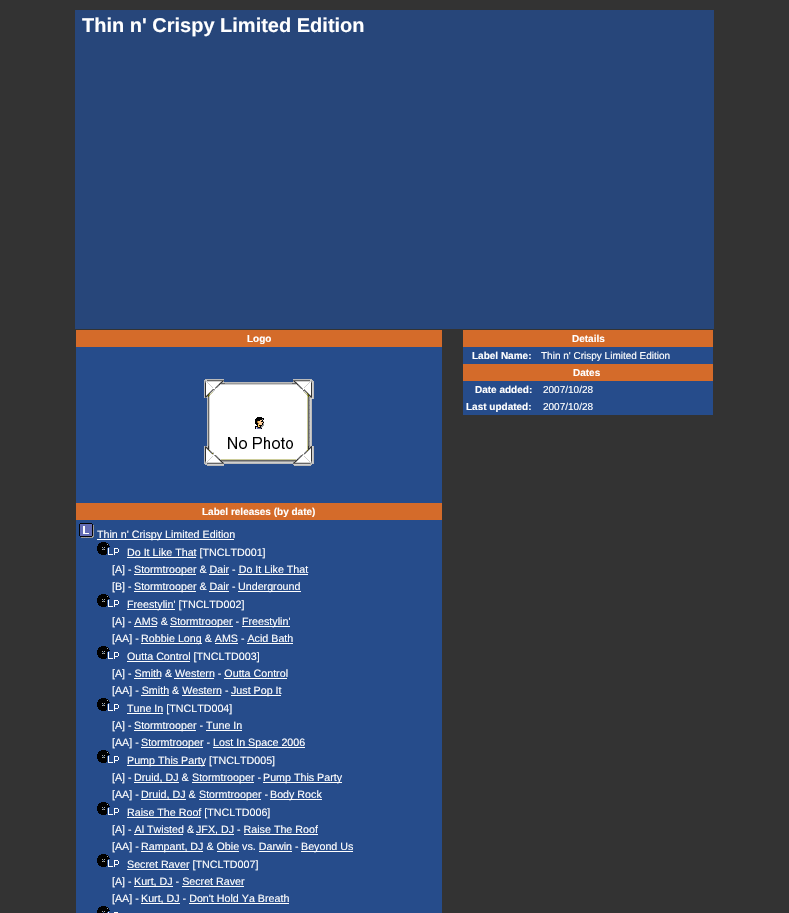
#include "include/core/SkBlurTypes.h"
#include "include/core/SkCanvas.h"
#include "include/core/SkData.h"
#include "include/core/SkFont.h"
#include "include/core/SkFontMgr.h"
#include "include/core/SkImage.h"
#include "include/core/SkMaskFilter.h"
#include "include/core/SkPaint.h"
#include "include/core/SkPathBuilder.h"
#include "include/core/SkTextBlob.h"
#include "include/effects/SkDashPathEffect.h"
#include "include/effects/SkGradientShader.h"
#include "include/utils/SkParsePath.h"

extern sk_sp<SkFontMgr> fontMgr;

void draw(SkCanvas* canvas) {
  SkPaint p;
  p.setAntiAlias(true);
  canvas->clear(SkColorSetRGB(51, 51, 51));
  p.setColor(SkColorSetRGB(39, 70, 122));
  canvas->drawRect(SkRect::MakeLTRB(75, 10, 714, 329), p);
  p.setColor(SkColorSetRGB(212, 107, 42));
  canvas->drawRect(SkRect::MakeLTRB(76, 330, 442, 347), p);
  p.setColor(SkColorSetRGB(38, 76, 139));
  canvas->drawRect(SkRect::MakeLTRB(76, 347, 442, 503), p);
  canvas->drawImageRect(SkImages::DeferredFromEncodedData(SkData::MakeFromFileName("images/1.png")), SkRect::MakeLTRB(204, 379, 314, 466), SkSamplingOptions());
  p.setColor(SkColorSetRGB(212, 107, 42));
  canvas->drawRect(SkRect::MakeLTRB(76, 503, 442, 520), p);
  p.setColor(SkColorSetRGB(38, 76, 139));
  canvas->drawRect(SkRect::MakeLTRB(76, 520, 442, 913), p);
  canvas->drawImageRect(SkImages::DeferredFromEncodedData(SkData::MakeFromFileName("images/2.png")), SkRect::MakeLTRB(79, 523, 94, 538), SkSamplingOptions());
  p.setColor(SK_ColorWHITE);
  canvas->drawRect(SkRect::MakeLTRB(97, 539, 234, 540), p);
  canvas->drawImageRect(SkImages::DeferredFromEncodedData(SkData::MakeFromFileName("images/3.png")), SkRect::MakeLTRB(97, 542, 119, 555), SkSamplingOptions());
  canvas->drawRect(SkRect::MakeLTRB(127, 557, 196, 558), p);
  canvas->drawRect(SkRect::MakeLTRB(134, 574, 196, 575), p);
  canvas->drawRect(SkRect::MakeLTRB(209, 574, 229, 575), p);
  canvas->drawRect(SkRect::MakeLTRB(238, 574, 308, 575), p);
  canvas->drawRect(SkRect::MakeLTRB(134, 591, 196, 592), p);
  canvas->drawRect(SkRect::MakeLTRB(238, 591, 301, 592), p);
  canvas->drawRect(SkRect::MakeLTRB(209, 591, 229, 592), p);
  canvas->drawImageRect(SkImages::DeferredFromEncodedData(SkData::MakeFromFileName("images/3.png")), SkRect::MakeLTRB(97, 594, 119, 607), SkSamplingOptions());
  canvas->drawRect(SkRect::MakeLTRB(127, 609, 175, 610), p);
  canvas->drawRect(SkRect::MakeLTRB(170, 626, 233, 627), p);
  canvas->drawRect(SkRect::MakeLTRB(242, 626, 290, 627), p);
  canvas->drawRect(SkRect::MakeLTRB(134, 626, 157, 627), p);
  canvas->drawRect(SkRect::MakeLTRB(141, 643, 202, 644), p);
  canvas->drawRect(SkRect::MakeLTRB(215, 643, 238, 644), p);
  canvas->drawRect(SkRect::MakeLTRB(247, 643, 293, 644), p);
  canvas->drawImageRect(SkImages::DeferredFromEncodedData(SkData::MakeFromFileName("images/3.png")), SkRect::MakeLTRB(97, 646, 119, 659), SkSamplingOptions());
  canvas->drawRect(SkRect::MakeLTRB(127, 661, 190, 662), p);
  canvas->drawRect(SkRect::MakeLTRB(134, 678, 161, 679), p);
  canvas->drawRect(SkRect::MakeLTRB(174, 678, 214, 679), p);
  canvas->drawRect(SkRect::MakeLTRB(224, 678, 287, 679), p);
  canvas->drawRect(SkRect::MakeLTRB(231, 695, 281, 696), p);
  canvas->drawRect(SkRect::MakeLTRB(141, 695, 169, 696), p);
  canvas->drawRect(SkRect::MakeLTRB(182, 695, 221, 696), p);
  canvas->drawImageRect(SkImages::DeferredFromEncodedData(SkData::MakeFromFileName("images/3.png")), SkRect::MakeLTRB(97, 698, 119, 711), SkSamplingOptions());
  canvas->drawRect(SkRect::MakeLTRB(127, 713, 163, 714), p);
  canvas->drawRect(SkRect::MakeLTRB(134, 730, 196, 731), p);
  canvas->drawRect(SkRect::MakeLTRB(206, 730, 242, 731), p);
  canvas->drawRect(SkRect::MakeLTRB(141, 747, 203, 748), p);
  canvas->drawRect(SkRect::MakeLTRB(213, 747, 305, 748), p);
  canvas->drawImageRect(SkImages::DeferredFromEncodedData(SkData::MakeFromFileName("images/3.png")), SkRect::MakeLTRB(97, 750, 119, 763), SkSamplingOptions());
  canvas->drawRect(SkRect::MakeLTRB(127, 765, 205, 766), p);
  canvas->drawRect(SkRect::MakeLTRB(134, 782, 179, 783), p);
  canvas->drawRect(SkRect::MakeLTRB(192, 782, 254, 783), p);
  canvas->drawRect(SkRect::MakeLTRB(263, 782, 342, 783), p);
  canvas->drawRect(SkRect::MakeLTRB(141, 799, 186, 800), p);
  canvas->drawRect(SkRect::MakeLTRB(199, 799, 261, 800), p);
  canvas->drawRect(SkRect::MakeLTRB(270, 799, 322, 800), p);
  canvas->drawImageRect(SkImages::DeferredFromEncodedData(SkData::MakeFromFileName("images/3.png")), SkRect::MakeLTRB(97, 802, 119, 815), SkSamplingOptions());
  canvas->drawRect(SkRect::MakeLTRB(127, 817, 201, 818), p);
  canvas->drawRect(SkRect::MakeLTRB(196, 834, 234, 835), p);
  canvas->drawRect(SkRect::MakeLTRB(134, 834, 183, 835), p);
  canvas->drawRect(SkRect::MakeLTRB(244, 834, 318, 835), p);
  canvas->drawRect(SkRect::MakeLTRB(141, 851, 203, 852), p);
  canvas->drawRect(SkRect::MakeLTRB(301, 851, 353, 852), p);
  canvas->drawRect(SkRect::MakeLTRB(217, 851, 239, 852), p);
  canvas->drawRect(SkRect::MakeLTRB(259, 851, 292, 852), p);
  canvas->drawImageRect(SkImages::DeferredFromEncodedData(SkData::MakeFromFileName("images/3.png")), SkRect::MakeLTRB(97, 854, 119, 867), SkSamplingOptions());
  canvas->drawRect(SkRect::MakeLTRB(127, 869, 189, 870), p);
  canvas->drawRect(SkRect::MakeLTRB(134, 886, 173, 887), p);
  canvas->drawRect(SkRect::MakeLTRB(182, 886, 244, 887), p);
  canvas->drawRect(SkRect::MakeLTRB(141, 903, 180, 904), p);
  canvas->drawRect(SkRect::MakeLTRB(189, 903, 289, 904), p);
  canvas->drawImageRect(SkImages::DeferredFromEncodedData(SkData::MakeFromFileName("images/4.png")), SkRect::MakeLTRB(97, 906, 118, 913), SkSamplingOptions());
  p.setColor(SkColorSetRGB(212, 107, 42));
  canvas->drawRect(SkRect::MakeLTRB(463, 330, 713, 347), p);
  p.setColor(SkColorSetRGB(38, 76, 139));
  canvas->drawRect(SkRect::MakeLTRB(463, 347, 713, 364), p);
  p.setColor(SkColorSetRGB(212, 107, 42));
  canvas->drawRect(SkRect::MakeLTRB(463, 364, 713, 381), p);
  p.setColor(SkColorSetRGB(38, 76, 139));
  canvas->drawRect(SkRect::MakeLTRB(463, 381, 713, 398), p);
  canvas->drawRect(SkRect::MakeLTRB(463, 398, 713, 415), p);
  SkFont font1(fontMgr->matchFamilyStyle("Liberation Sans", SkFontStyle::Bold()), 20);
  font1.setSubpixel(true);
  p.setColor(SK_ColorWHITE);
  canvas->drawString("Thin n' Crispy Limited Edition", 82, 32, font1, p);
  SkFont font2(fontMgr->matchFamilyStyle("Liberation Sans", SkFontStyle::Bold()), 10);
  font2.setSubpixel(true);
  canvas->drawString("Logo", 247, 342, font2, p);
  canvas->drawString("Label releases (by date)", 202, 515, font2, p);
  SkFont font3(fontMgr->matchFamilyStyle("Liberation Sans", SkFontStyle::Normal()), 10.7f);
  font3.setSubpixel(true);
  canvas->drawString("Thin n' Crispy Limited Edition", 97, 538, font3, p);
  canvas->drawString("Do It Like That [TNCLTD001]", 127, 556, font3, p);
  canvas->drawString("[A] -", 112, 573, font3, p);
  canvas->drawString("Stormtrooper & Dair - Do It Like That", 134, 573, font3, p);
  canvas->drawString("[B] -", 112, 590, font3, p);
  canvas->drawString("Stormtrooper & Dair -", 134, 590, font3, p);
  canvas->drawString("Underground", 238, 590, font3, p);
  canvas->drawString("Freestylin' [TNCLTD002]", 127, 608, font3, p);
  canvas->drawString("[A] - AMS &", 112, 625, font3, p);
  canvas->drawString("Stormtrooper -", 170, 625, font3, p);
  canvas->drawString("Freestylin'", 242, 625, font3, p);
  canvas->drawString("[AA] -", 112, 642, font3, p);
  canvas->drawString("Robbie Long & AMS - Acid Bath", 141, 642, font3, p);
  canvas->drawString("Outta Control [TNCLTD003]", 127, 660, font3, p);
  canvas->drawString("[A] - Smith & Western - Outta Control", 112, 677, font3, p);
  canvas->drawString("[AA] - Smith & Western -", 112, 694, font3, p);
  canvas->drawString("Just Pop It", 231, 694, font3, p);
  canvas->drawString("Tune In [TNCLTD004]", 127, 712, font3, p);
  canvas->drawString("[A] -", 112, 729, font3, p);
  canvas->drawString("Stormtrooper - Tune In", 134, 729, font3, p);
  canvas->drawString("[AA] -", 112, 746, font3, p);
  canvas->drawString("Stormtrooper -", 141, 746, font3, p);
  canvas->drawString("Lost In Space 2006", 213, 746, font3, p);
  canvas->drawString("Pump This Party [TNCLTD005]", 127, 764, font3, p);
  canvas->drawString("[A] -", 112, 781, font3, p);
  canvas->drawString("Druid, DJ &", 134, 781, font3, p);
  canvas->drawString("Stormtrooper -", 192, 781, font3, p);
  canvas->drawString("Pump This Party", 263, 781, font3, p);
  canvas->drawString("[AA] -", 112, 798, font3, p);
  canvas->drawString("Druid, DJ &", 141, 798, font3, p);
  canvas->drawString("Stormtrooper -", 199, 798, font3, p);
  canvas->drawString("Body Rock", 270, 798, font3, p);
  canvas->drawString("Raise The Roof [TNCLTD006]", 127, 816, font3, p);
  canvas->drawString("[A] - Al Twisted &", 112, 833, font3, p);
  canvas->drawString("JFX, DJ - Raise The Roof", 196, 833, font3, p);
  canvas->drawString("[AA] -", 112, 850, font3, p);
  canvas->drawString("Rampant, DJ & Obie vs. Darwin -", 141, 850, font3, p);
  canvas->drawString("Beyond Us", 301, 850, font3, p);
  canvas->drawString("Secret Raver [TNCLTD007]", 127, 868, font3, p);
  canvas->drawString("[A] -", 112, 885, font3, p);
  canvas->drawString("Kurt, DJ - Secret Raver", 134, 885, font3, p);
  canvas->drawString("[AA] -", 112, 902, font3, p);
  canvas->drawString("Kurt, DJ - Don't Hold Ya Breath", 141, 902, font3, p);
  canvas->drawString("Details", 572, 342, font2, p);
  canvas->drawString("Label Name:", 472, 359, font2, p);
  SkFont font4(fontMgr->matchFamilyStyle("Liberation Sans", SkFontStyle::Normal()), 10);
  font4.setSubpixel(true);
  canvas->drawString("Thin n' Crispy Limited Edition", 541, 359, font4, p);
  canvas->drawString("Dates", 573, 376, font2, p);
  canvas->drawString("Date added:", 475, 393, font2, p);
  canvas->drawString("2007/10/28", 543, 393, font4, p);
  canvas->drawString("Last updated:", 466, 410, font2, p);
  canvas->drawString("2007/10/28", 543, 410, font4, p);
}
